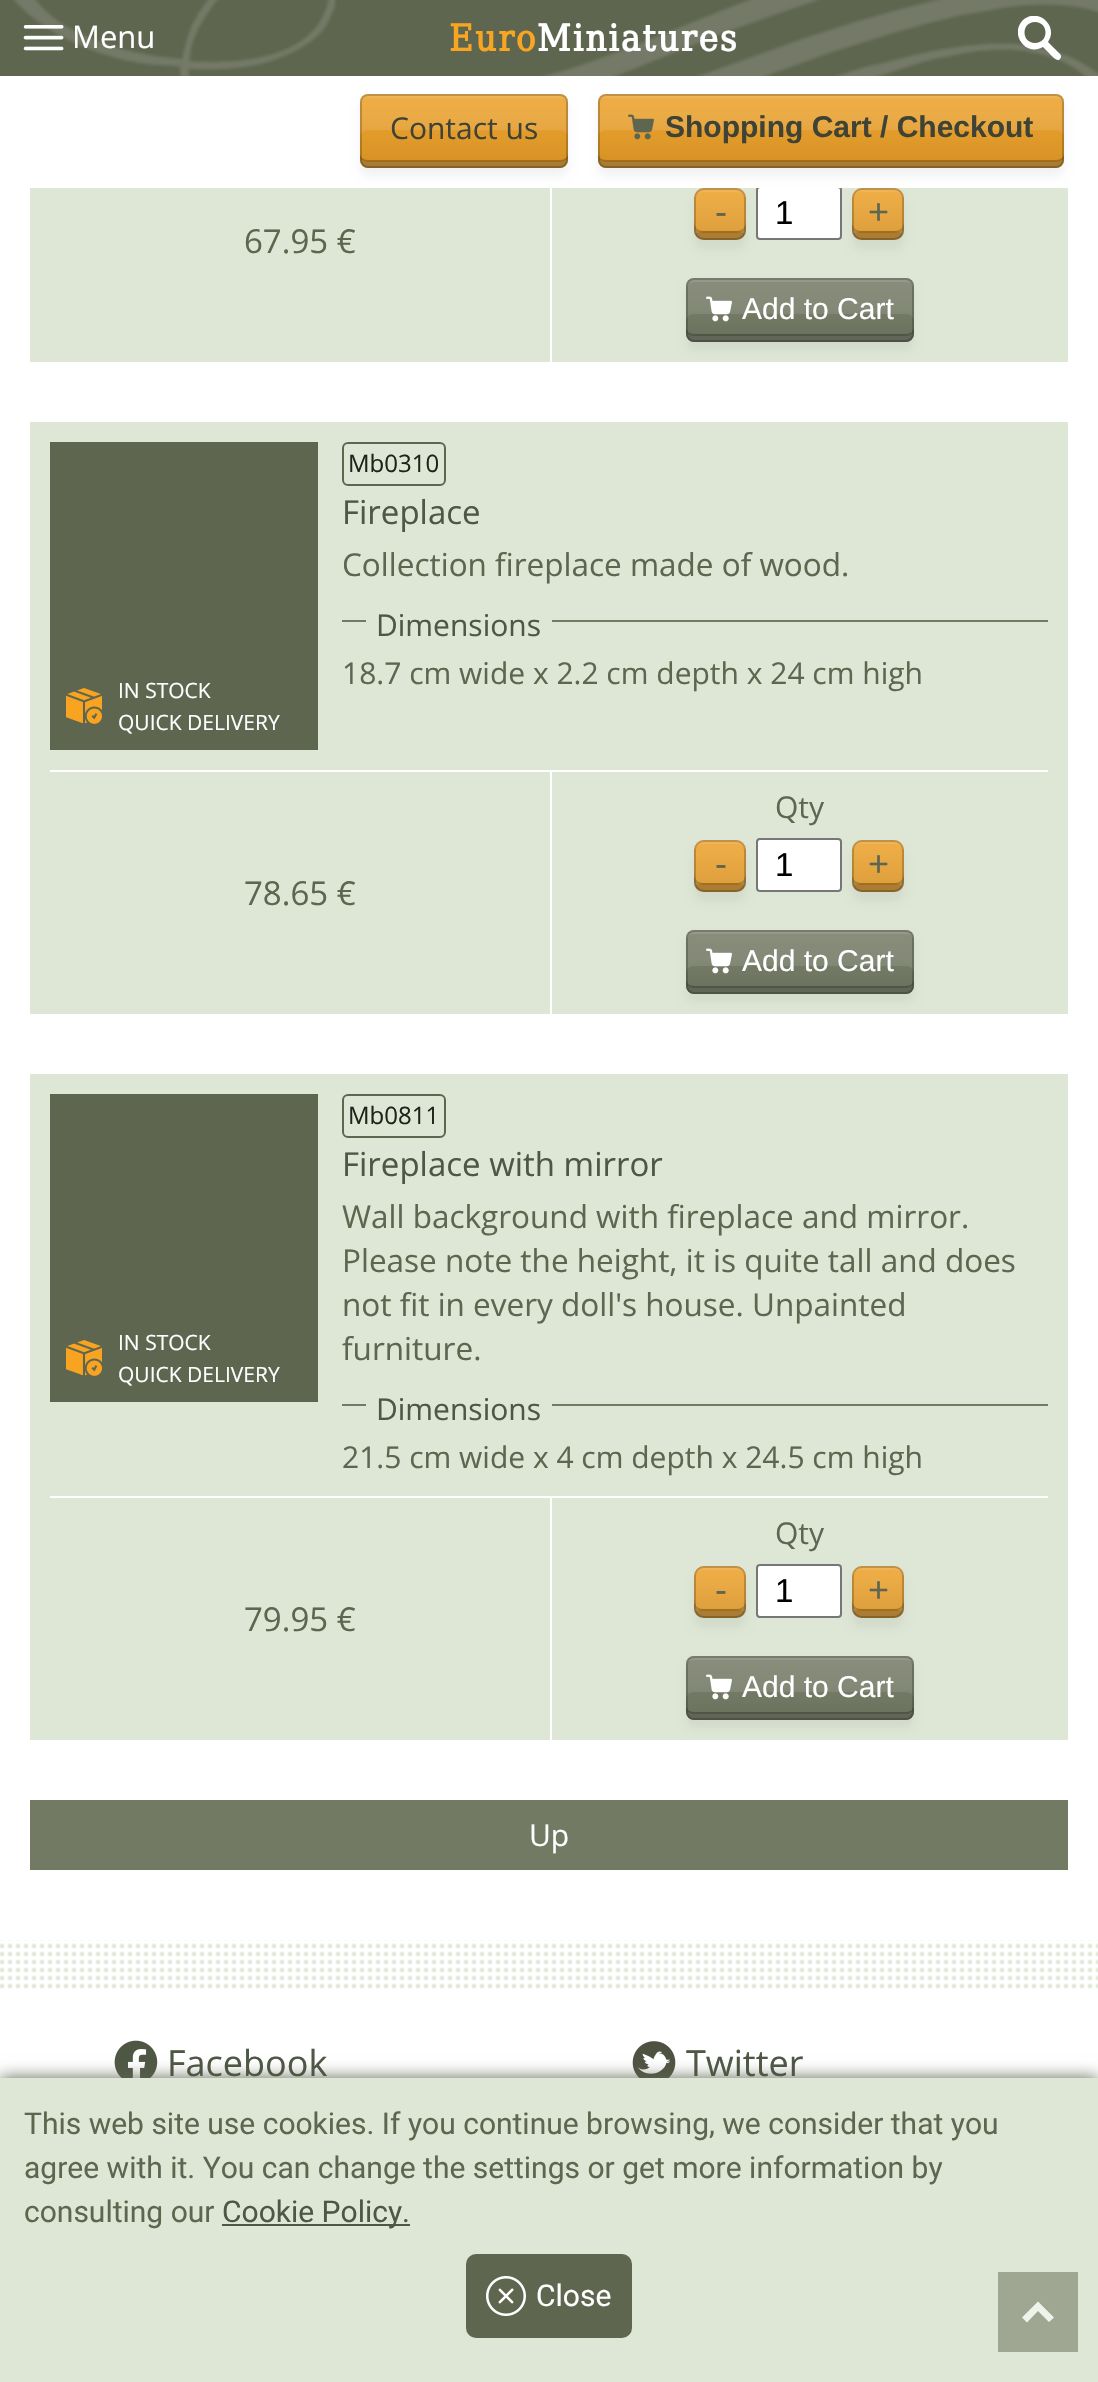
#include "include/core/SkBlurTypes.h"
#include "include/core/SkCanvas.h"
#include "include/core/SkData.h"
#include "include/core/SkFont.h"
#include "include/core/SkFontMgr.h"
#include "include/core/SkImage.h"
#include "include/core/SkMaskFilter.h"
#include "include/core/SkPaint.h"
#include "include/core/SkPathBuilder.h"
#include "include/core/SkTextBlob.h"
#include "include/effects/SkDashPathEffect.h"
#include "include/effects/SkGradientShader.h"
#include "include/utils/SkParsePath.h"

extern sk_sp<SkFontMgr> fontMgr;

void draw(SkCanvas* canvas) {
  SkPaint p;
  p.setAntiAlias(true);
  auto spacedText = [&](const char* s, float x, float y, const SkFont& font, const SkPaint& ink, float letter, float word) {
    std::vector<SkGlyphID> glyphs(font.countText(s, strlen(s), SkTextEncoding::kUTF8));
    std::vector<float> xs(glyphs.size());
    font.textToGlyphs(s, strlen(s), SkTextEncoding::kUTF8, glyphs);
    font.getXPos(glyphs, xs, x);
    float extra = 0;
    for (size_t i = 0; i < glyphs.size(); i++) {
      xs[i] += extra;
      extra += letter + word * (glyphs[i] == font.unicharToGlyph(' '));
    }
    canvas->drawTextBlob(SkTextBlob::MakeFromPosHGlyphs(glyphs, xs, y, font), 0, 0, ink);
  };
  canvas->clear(SK_ColorWHITE);
  canvas->drawImageRect(SkImages::DeferredFromEncodedData(SkData::MakeFromFileName("images/1.png")), SkRect::MakeLTRB(0, 1940, 1098, 1989), SkSamplingOptions());
  p.setColor(SkColorSetRGB(95, 102, 80));
  canvas->drawRect(SkRect::MakeLTRB(0, 0, 1098, 76), p);
  canvas->drawImageRect(SkImages::DeferredFromEncodedData(SkData::MakeFromFileName("images/2.png")), SkRect::MakeLTRB(13, 0, 1098, 76), SkSamplingOptions());
  canvas->drawImageRect(SkImages::DeferredFromEncodedData(SkData::MakeFromFileName("images/3.png")), SkRect::MakeLTRB(23, 25, 64, 51), SkSamplingOptions());
  canvas->save();
  canvas->clipRect(SkRect::MakeLTRB(1018, 16, 1062, 60));
  p.setColor(SK_ColorWHITE);
  canvas->drawPath(SkPathBuilder().moveTo(1048, 42).cubicTo(1059, 26, 1038, 7, 1023, 20).cubicTo(1009, 34, 1026, 57, 1043, 47).lineTo(1049, 53).cubicTo(1050, 54, 1059, 65, 1061, 57).cubicTo(1061, 56, 1061, 55, 1060, 54).close().moveTo(1035, 43).cubicTo(1021, 43, 1021, 22, 1035, 22).cubicTo(1049, 22, 1049, 43, 1035, 43).close().detach(), p);
  canvas->restore();
  p.setColor(SkColorSetRGB(222, 231, 214));
  canvas->drawRect(SkRect::MakeLTRB(30, 188, 1068, 362), p);
  p.setColor(SK_ColorWHITE);
  canvas->drawRoundRect(SkRect::MakeLTRB(757, 187, 841, 239), 3, 3, p);
  p.setStyle(SkPaint::kStroke_Style);
  p.setStrokeWidth(2);
  p.setColor(SkColorSetRGB(118, 118, 118));
  canvas->drawRoundRect(SkRect::MakeLTRB(757, 187, 841, 239), 3, 3, p);
  p.setStyle(SkPaint::kFill_Style);
  p.setColor(SkColorSetARGB(13, 0, 0, 0));
  p.setMaskFilter(SkMaskFilter::MakeBlur(kNormal_SkBlurStyle, 4.5f));
  canvas->drawRoundRect(SkRect::MakeLTRB(694, 198, 746, 250), 10, 10, p);
  p.setMaskFilter(nullptr);
  p.setMaskFilter(SkMaskFilter::MakeBlur(kNormal_SkBlurStyle, 4.5f));
  canvas->drawRoundRect(SkRect::MakeLTRB(852, 198, 904, 250), 10, 10, p);
  p.setMaskFilter(nullptr);
  p.setColor(SK_ColorWHITE);
  canvas->drawRect(SkRect::MakeLTRB(756, 186, 842, 188), p);
  canvas->drawRect(SkRect::MakeLTRB(550, 188, 552, 362), p);
  p.setColor(SkColorSetARGB(13, 0, 0, 0));
  p.setMaskFilter(SkMaskFilter::MakeBlur(kNormal_SkBlurStyle, 4));
  canvas->drawRoundRect(SkRect::MakeLTRB(360, 102, 568, 176), 8, 8, p);
  p.setMaskFilter(nullptr);
  p.setColor(SkColorSetRGB(236, 159, 37));
  canvas->drawRoundRect(SkRect::MakeLTRB(360, 94, 568, 168), 8, 8, p);
  {
    const SkColor colors[] = {SkColorSetARGB(13, 255, 255, 255), SkColorSetARGB(26, 0, 0, 0)};
    const float stops[] = {0, 1};
    const SkPoint ends[] = {{464, 94}, {464, 168}};
    p.setShader(SkGradientShader::MakeLinear(ends, colors, stops, 2, SkTileMode::kClamp));
    p.setAlpha(255);
  }
  canvas->drawRoundRect(SkRect::MakeLTRB(360, 94, 568, 168), 8, 8, p);
  p.setShader(nullptr);
  p.setColor(SkColorSetARGB(64, 0, 0, 0));
  canvas->drawPath(SkPathBuilder().moveTo(360, 153).lineTo(360, 160).cubicTo(360, 164, 364, 168, 368, 168).lineTo(560, 168).cubicTo(564, 168, 568, 164, 568, 160).lineTo(568, 153).cubicTo(568, 157, 565, 160, 560, 160).lineTo(368, 160).cubicTo(363, 160, 360, 157, 360, 153).close().detach(), p);
  p.setColor(SkColorSetARGB(26, 255, 255, 255));
  canvas->drawPath(SkPathBuilder().moveTo(360, 154).lineTo(360, 160).cubicTo(360, 164, 364, 168, 368, 168).lineTo(560, 168).cubicTo(564, 168, 568, 164, 568, 160).lineTo(568, 154).cubicTo(568, 159, 565, 162, 560, 162).lineTo(368, 162).cubicTo(363, 162, 360, 159, 360, 154).close().detach(), p);
  canvas->drawPath(SkPathBuilder().moveTo(368, 130).lineTo(560, 130).cubicTo(565, 130, 568, 133, 568, 138).lineTo(568, 102).cubicTo(568, 98, 564, 94, 560, 94).lineTo(368, 94).cubicTo(364, 94, 360, 98, 360, 102).lineTo(360, 138).cubicTo(360, 133, 363, 130, 368, 130).close().detach(), p);
  canvas->drawPath(SkPathBuilder().moveTo(368, 98).lineTo(560, 98).cubicTo(565, 98, 568, 101, 568, 106).lineTo(568, 102).cubicTo(568, 98, 564, 94, 560, 94).lineTo(368, 94).cubicTo(364, 94, 360, 98, 360, 102).lineTo(360, 106).cubicTo(360, 101, 363, 98, 368, 98).close().detach(), p);
  p.setStyle(SkPaint::kStroke_Style);
  p.setColor(SkColorSetARGB(51, 0, 0, 0));
  canvas->drawRoundRect(SkRect::MakeLTRB(361, 95, 567, 167), 7, 7, p);
  p.setStyle(SkPaint::kFill_Style);
  p.setColor(SkColorSetRGB(236, 159, 37));
  canvas->drawRoundRect(SkRect::MakeLTRB(694, 188, 746, 240), 10, 10, p);
  {
    const SkColor colors[] = {SkColorSetARGB(13, 255, 255, 255), SkColorSetARGB(26, 0, 0, 0)};
    const float stops[] = {0, 1};
    const SkPoint ends[] = {{720, 188}, {720, 240}};
    p.setShader(SkGradientShader::MakeLinear(ends, colors, stops, 2, SkTileMode::kClamp));
    p.setAlpha(255);
  }
  canvas->drawRoundRect(SkRect::MakeLTRB(694, 188, 746, 240), 10, 10, p);
  p.setShader(nullptr);
  p.setColor(SkColorSetARGB(64, 0, 0, 0));
  canvas->drawPath(SkPathBuilder().moveTo(694, 222).lineTo(694, 230).cubicTo(694, 236, 698, 240, 704, 240).lineTo(736, 240).cubicTo(742, 240, 746, 236, 746, 230).lineTo(746, 222).cubicTo(746, 227, 742, 231, 737, 231).lineTo(703, 231).cubicTo(698, 231, 694, 227, 694, 222).close().detach(), p);
  p.setColor(SkColorSetARGB(26, 255, 255, 255));
  canvas->drawPath(SkPathBuilder().moveTo(694, 224).lineTo(694, 230).cubicTo(694, 236, 698, 240, 704, 240).lineTo(736, 240).cubicTo(742, 240, 746, 236, 746, 230).lineTo(746, 224).cubicTo(746, 229, 742, 233, 737, 233).lineTo(703, 233).cubicTo(698, 233, 694, 229, 694, 224).close().detach(), p);
  canvas->drawPath(SkPathBuilder().moveTo(703, 231).lineTo(737, 231).cubicTo(740, 231, 743, 233, 745, 235).cubicTo(746, 232, 746, 228, 746, 225).lineTo(746, 214).cubicTo(746, 187, 747, 188, 720, 188).cubicTo(693, 188, 694, 187, 694, 214).lineTo(694, 225).cubicTo(694, 228, 694, 232, 695, 235).cubicTo(697, 233, 700, 231, 703, 231).close().detach(), p);
  canvas->drawPath(SkPathBuilder().moveTo(703, 192).lineTo(737, 192).cubicTo(742, 192, 746, 196, 746, 201).cubicTo(746, 189, 741, 188, 731, 188).lineTo(709, 188).cubicTo(699, 188, 694, 189, 694, 201).cubicTo(694, 196, 698, 192, 703, 192).close().detach(), p);
  p.setStyle(SkPaint::kStroke_Style);
  p.setColor(SkColorSetARGB(51, 0, 0, 0));
  canvas->drawRoundRect(SkRect::MakeLTRB(695, 189, 745, 239), 9, 9, p);
  p.setStyle(SkPaint::kFill_Style);
  p.setColor(SkColorSetRGB(236, 159, 37));
  canvas->drawRoundRect(SkRect::MakeLTRB(852, 188, 904, 240), 10, 10, p);
  {
    const SkColor colors[] = {SkColorSetARGB(13, 255, 255, 255), SkColorSetARGB(26, 0, 0, 0)};
    const float stops[] = {0, 1};
    const SkPoint ends[] = {{878, 188}, {878, 240}};
    p.setShader(SkGradientShader::MakeLinear(ends, colors, stops, 2, SkTileMode::kClamp));
    p.setAlpha(255);
  }
  canvas->drawRoundRect(SkRect::MakeLTRB(852, 188, 904, 240), 10, 10, p);
  p.setShader(nullptr);
  p.setColor(SkColorSetARGB(64, 0, 0, 0));
  canvas->drawPath(SkPathBuilder().moveTo(852, 222).lineTo(852, 230).cubicTo(852, 236, 856, 240, 862, 240).lineTo(894, 240).cubicTo(900, 240, 904, 236, 904, 230).lineTo(904, 222).cubicTo(904, 227, 900, 231, 895, 231).lineTo(861, 231).cubicTo(856, 231, 852, 227, 852, 222).close().detach(), p);
  p.setColor(SkColorSetARGB(26, 255, 255, 255));
  canvas->drawPath(SkPathBuilder().moveTo(852, 224).lineTo(852, 230).cubicTo(852, 236, 856, 240, 862, 240).lineTo(894, 240).cubicTo(900, 240, 904, 236, 904, 230).lineTo(904, 224).cubicTo(904, 229, 900, 233, 895, 233).lineTo(861, 233).cubicTo(856, 233, 852, 229, 852, 224).close().detach(), p);
  canvas->drawPath(SkPathBuilder().moveTo(861, 231).lineTo(895, 231).cubicTo(898, 231, 901, 233, 903, 235).cubicTo(904, 232, 904, 228, 904, 225).lineTo(904, 214).cubicTo(904, 187, 905, 188, 878, 188).cubicTo(851, 188, 852, 187, 852, 214).lineTo(852, 225).cubicTo(852, 228, 852, 232, 853, 235).cubicTo(855, 233, 858, 231, 861, 231).close().detach(), p);
  canvas->drawPath(SkPathBuilder().moveTo(861, 192).lineTo(895, 192).cubicTo(900, 192, 904, 196, 904, 201).cubicTo(904, 189, 899, 188, 889, 188).lineTo(867, 188).cubicTo(857, 188, 852, 189, 852, 201).cubicTo(852, 196, 856, 192, 861, 192).close().detach(), p);
  p.setStyle(SkPaint::kStroke_Style);
  p.setColor(SkColorSetARGB(51, 0, 0, 0));
  canvas->drawRoundRect(SkRect::MakeLTRB(853, 189, 903, 239), 9, 9, p);
  p.setStyle(SkPaint::kFill_Style);
  p.setColor(SkColorSetARGB(13, 0, 0, 0));
  p.setMaskFilter(SkMaskFilter::MakeBlur(kNormal_SkBlurStyle, 4));
  canvas->drawRoundRect(SkRect::MakeLTRB(598, 102, 1064, 176), 8, 8, p);
  p.setMaskFilter(nullptr);
  p.setColor(SkColorSetRGB(236, 159, 37));
  canvas->drawRoundRect(SkRect::MakeLTRB(598, 94, 1064, 168), 8, 8, p);
  {
    const SkColor colors[] = {SkColorSetARGB(13, 255, 255, 255), SkColorSetARGB(26, 0, 0, 0)};
    const float stops[] = {0, 1};
    const SkPoint ends[] = {{831, 94}, {831, 168}};
    p.setShader(SkGradientShader::MakeLinear(ends, colors, stops, 2, SkTileMode::kClamp));
    p.setAlpha(255);
  }
  canvas->drawRoundRect(SkRect::MakeLTRB(598, 94, 1064, 168), 8, 8, p);
  p.setShader(nullptr);
  p.setColor(SkColorSetARGB(64, 0, 0, 0));
  canvas->drawPath(SkPathBuilder().moveTo(598, 153).lineTo(598, 160).cubicTo(598, 164, 602, 168, 606, 168).lineTo(1056, 168).cubicTo(1060, 168, 1064, 164, 1064, 160).lineTo(1064, 153).cubicTo(1064, 157, 1061, 160, 1056, 160).lineTo(606, 160).cubicTo(601, 160, 598, 157, 598, 153).close().detach(), p);
  p.setColor(SkColorSetARGB(26, 255, 255, 255));
  canvas->drawPath(SkPathBuilder().moveTo(598, 154).lineTo(598, 160).cubicTo(598, 164, 602, 168, 606, 168).lineTo(1056, 168).cubicTo(1060, 168, 1064, 164, 1064, 160).lineTo(1064, 154).cubicTo(1064, 159, 1061, 162, 1056, 162).lineTo(606, 162).cubicTo(601, 162, 598, 159, 598, 154).close().detach(), p);
  canvas->drawPath(SkPathBuilder().moveTo(606, 130).lineTo(1056, 130).cubicTo(1061, 130, 1064, 133, 1064, 138).lineTo(1064, 102).cubicTo(1064, 98, 1060, 94, 1056, 94).lineTo(606, 94).cubicTo(602, 94, 598, 98, 598, 102).lineTo(598, 138).cubicTo(598, 133, 601, 130, 606, 130).close().detach(), p);
  canvas->drawPath(SkPathBuilder().moveTo(606, 98).lineTo(1056, 98).cubicTo(1061, 98, 1064, 101, 1064, 106).cubicTo(1064, 100, 1063, 94, 1056, 94).lineTo(606, 94).cubicTo(599, 94, 598, 100, 598, 106).cubicTo(598, 101, 601, 98, 606, 98).close().detach(), p);
  p.setStyle(SkPaint::kStroke_Style);
  p.setColor(SkColorSetARGB(51, 0, 0, 0));
  canvas->drawRoundRect(SkRect::MakeLTRB(599, 95, 1063, 167), 7, 7, p);
  canvas->drawImageRect(SkImages::DeferredFromEncodedData(SkData::MakeFromFileName("images/4.png")), SkRect::MakeLTRB(628, 114, 654, 140), SkSamplingOptions());
  p.setStyle(SkPaint::kFill_Style);
  p.setColor(SkColorSetARGB(13, 0, 0, 0));
  p.setMaskFilter(SkMaskFilter::MakeBlur(kNormal_SkBlurStyle, 4));
  canvas->drawRoundRect(SkRect::MakeLTRB(686, 286, 914, 350), 8, 8, p);
  p.setMaskFilter(nullptr);
  p.setColor(SkColorSetRGB(115, 122, 100));
  canvas->drawRoundRect(SkRect::MakeLTRB(686, 278, 914, 342), 8, 8, p);
  {
    const SkColor colors[] = {SkColorSetARGB(13, 255, 255, 255), SkColorSetARGB(26, 0, 0, 0)};
    const float stops[] = {0, 1};
    const SkPoint ends[] = {{800, 278}, {800, 342}};
    p.setShader(SkGradientShader::MakeLinear(ends, colors, stops, 2, SkTileMode::kClamp));
    p.setAlpha(255);
  }
  canvas->drawRoundRect(SkRect::MakeLTRB(686, 278, 914, 342), 8, 8, p);
  p.setShader(nullptr);
  p.setColor(SkColorSetARGB(64, 0, 0, 0));
  canvas->drawPath(SkPathBuilder().moveTo(686, 327).lineTo(686, 334).cubicTo(686, 338, 690, 342, 694, 342).lineTo(906, 342).cubicTo(910, 342, 914, 338, 914, 334).lineTo(914, 327).cubicTo(914, 331, 911, 334, 906, 334).lineTo(694, 334).cubicTo(689, 334, 686, 331, 686, 327).close().detach(), p);
  p.setColor(SkColorSetARGB(26, 255, 255, 255));
  canvas->drawPath(SkPathBuilder().moveTo(686, 328).lineTo(686, 334).cubicTo(686, 338, 690, 342, 694, 342).lineTo(906, 342).cubicTo(910, 342, 914, 338, 914, 334).lineTo(914, 328).cubicTo(914, 333, 911, 336, 906, 336).lineTo(694, 336).cubicTo(689, 336, 686, 333, 686, 328).close().detach(), p);
  canvas->drawPath(SkPathBuilder().moveTo(694, 314).lineTo(906, 314).cubicTo(911, 314, 914, 317, 914, 322).lineTo(914, 286).cubicTo(914, 282, 910, 278, 906, 278).lineTo(694, 278).cubicTo(690, 278, 686, 282, 686, 286).lineTo(686, 322).cubicTo(686, 317, 689, 314, 694, 314).close().detach(), p);
  canvas->drawPath(SkPathBuilder().moveTo(694, 282).lineTo(906, 282).cubicTo(911, 282, 914, 285, 914, 290).lineTo(914, 286).cubicTo(914, 282, 910, 278, 906, 278).lineTo(694, 278).cubicTo(690, 278, 686, 282, 686, 286).lineTo(686, 290).cubicTo(686, 285, 689, 282, 694, 282).close().detach(), p);
  p.setStyle(SkPaint::kStroke_Style);
  p.setColor(SkColorSetARGB(51, 0, 0, 0));
  canvas->drawRoundRect(SkRect::MakeLTRB(687, 279, 913, 341), 7, 7, p);
  canvas->drawImageRect(SkImages::DeferredFromEncodedData(SkData::MakeFromFileName("images/5.png")), SkRect::MakeLTRB(706, 296, 732, 322), SkSamplingOptions());
  p.setStyle(SkPaint::kFill_Style);
  p.setColor(SkColorSetRGB(222, 231, 214));
  canvas->drawRect(SkRect::MakeLTRB(30, 422, 1068, 1014), p);
  p.setColor(SK_ColorWHITE);
  canvas->drawRect(SkRect::MakeLTRB(50, 770, 1048, 772), p);
  p.setStyle(SkPaint::kStroke_Style);
  p.setColor(SkColorSetRGB(95, 102, 80));
  canvas->drawRoundRect(SkRect::MakeLTRB(343, 443, 445, 485), 5, 5, p);
  p.setStyle(SkPaint::kFill_Style);
  p.setColor(SkColorSetRGB(115, 122, 100));
  canvas->drawRect(SkRect::MakeLTRB(342, 620, 1048, 622), p);
  p.setColor(SkColorSetRGB(222, 231, 214));
  canvas->drawRoundRect(SkRect::MakeLTRB(366, 604, 552, 644), 6, 6, p);
  p.setColor(SkColorSetRGB(95, 102, 80));
  canvas->drawRect(SkRect::MakeLTRB(50, 442, 318, 750), p);
  canvas->drawImageRect(SkImages::DeferredFromEncodedData(SkData::MakeFromFileName("images/6.png")), SkRect::MakeLTRB(66, 688, 102, 724), SkSamplingOptions());
  p.setColor(SK_ColorWHITE);
  canvas->drawRect(SkRect::MakeLTRB(550, 772, 552, 1014), p);
  canvas->drawRoundRect(SkRect::MakeLTRB(757, 839, 841, 891), 3, 3, p);
  p.setStyle(SkPaint::kStroke_Style);
  p.setColor(SkColorSetRGB(118, 118, 118));
  canvas->drawRoundRect(SkRect::MakeLTRB(757, 839, 841, 891), 3, 3, p);
  p.setStyle(SkPaint::kFill_Style);
  p.setColor(SkColorSetARGB(13, 0, 0, 0));
  p.setMaskFilter(SkMaskFilter::MakeBlur(kNormal_SkBlurStyle, 4.5f));
  canvas->drawRoundRect(SkRect::MakeLTRB(694, 850, 746, 902), 10, 10, p);
  p.setMaskFilter(nullptr);
  p.setColor(SkColorSetRGB(236, 159, 37));
  canvas->drawRoundRect(SkRect::MakeLTRB(694, 840, 746, 892), 10, 10, p);
  {
    const SkColor colors[] = {SkColorSetARGB(13, 255, 255, 255), SkColorSetARGB(26, 0, 0, 0)};
    const float stops[] = {0, 1};
    const SkPoint ends[] = {{720, 840}, {720, 892}};
    p.setShader(SkGradientShader::MakeLinear(ends, colors, stops, 2, SkTileMode::kClamp));
    p.setAlpha(255);
  }
  canvas->drawRoundRect(SkRect::MakeLTRB(694, 840, 746, 892), 10, 10, p);
  p.setShader(nullptr);
  p.setColor(SkColorSetARGB(64, 0, 0, 0));
  canvas->drawPath(SkPathBuilder().moveTo(694, 874).lineTo(694, 882).cubicTo(694, 888, 698, 892, 704, 892).lineTo(736, 892).cubicTo(742, 892, 746, 888, 746, 882).lineTo(746, 874).cubicTo(746, 879, 742, 883, 737, 883).lineTo(703, 883).cubicTo(698, 883, 694, 879, 694, 874).close().detach(), p);
  p.setColor(SkColorSetARGB(26, 255, 255, 255));
  canvas->drawPath(SkPathBuilder().moveTo(694, 876).lineTo(694, 882).cubicTo(694, 888, 698, 892, 704, 892).lineTo(736, 892).cubicTo(742, 892, 746, 888, 746, 882).lineTo(746, 876).cubicTo(746, 881, 742, 885, 737, 885).lineTo(703, 885).cubicTo(698, 885, 694, 881, 694, 876).close().detach(), p);
  canvas->drawPath(SkPathBuilder().moveTo(703, 883).lineTo(737, 883).cubicTo(740, 883, 743, 885, 745, 887).cubicTo(746, 884, 746, 880, 746, 877).lineTo(746, 866).cubicTo(746, 839, 747, 840, 720, 840).cubicTo(693, 840, 694, 839, 694, 866).lineTo(694, 877).cubicTo(694, 880, 694, 884, 695, 887).cubicTo(697, 885, 700, 883, 703, 883).close().detach(), p);
  canvas->drawPath(SkPathBuilder().moveTo(703, 844).lineTo(737, 844).cubicTo(742, 844, 746, 848, 746, 853).cubicTo(746, 841, 741, 840, 731, 840).lineTo(709, 840).cubicTo(699, 840, 694, 841, 694, 853).cubicTo(694, 848, 698, 844, 703, 844).close().detach(), p);
  p.setStyle(SkPaint::kStroke_Style);
  p.setColor(SkColorSetARGB(51, 0, 0, 0));
  canvas->drawRoundRect(SkRect::MakeLTRB(695, 841, 745, 891), 9, 9, p);
  p.setStyle(SkPaint::kFill_Style);
  p.setColor(SkColorSetARGB(13, 0, 0, 0));
  p.setMaskFilter(SkMaskFilter::MakeBlur(kNormal_SkBlurStyle, 4.5f));
  canvas->drawRoundRect(SkRect::MakeLTRB(852, 850, 904, 902), 10, 10, p);
  p.setMaskFilter(nullptr);
  p.setColor(SkColorSetRGB(236, 159, 37));
  canvas->drawRoundRect(SkRect::MakeLTRB(852, 840, 904, 892), 10, 10, p);
  {
    const SkColor colors[] = {SkColorSetARGB(13, 255, 255, 255), SkColorSetARGB(26, 0, 0, 0)};
    const float stops[] = {0, 1};
    const SkPoint ends[] = {{878, 840}, {878, 892}};
    p.setShader(SkGradientShader::MakeLinear(ends, colors, stops, 2, SkTileMode::kClamp));
    p.setAlpha(255);
  }
  canvas->drawRoundRect(SkRect::MakeLTRB(852, 840, 904, 892), 10, 10, p);
  p.setShader(nullptr);
  p.setColor(SkColorSetARGB(64, 0, 0, 0));
  canvas->drawPath(SkPathBuilder().moveTo(852, 874).lineTo(852, 882).cubicTo(852, 888, 856, 892, 862, 892).lineTo(894, 892).cubicTo(900, 892, 904, 888, 904, 882).lineTo(904, 874).cubicTo(904, 879, 900, 883, 895, 883).lineTo(861, 883).cubicTo(856, 883, 852, 879, 852, 874).close().detach(), p);
  p.setColor(SkColorSetARGB(26, 255, 255, 255));
  canvas->drawPath(SkPathBuilder().moveTo(852, 876).lineTo(852, 882).cubicTo(852, 888, 856, 892, 862, 892).lineTo(894, 892).cubicTo(900, 892, 904, 888, 904, 882).lineTo(904, 876).cubicTo(904, 881, 900, 885, 895, 885).lineTo(861, 885).cubicTo(856, 885, 852, 881, 852, 876).close().detach(), p);
  canvas->drawPath(SkPathBuilder().moveTo(861, 883).lineTo(895, 883).cubicTo(898, 883, 901, 885, 903, 887).cubicTo(904, 884, 904, 880, 904, 877).lineTo(904, 866).cubicTo(904, 839, 905, 840, 878, 840).cubicTo(851, 840, 852, 839, 852, 866).lineTo(852, 877).cubicTo(852, 880, 852, 884, 853, 887).cubicTo(855, 885, 858, 883, 861, 883).close().detach(), p);
  canvas->drawPath(SkPathBuilder().moveTo(861, 844).lineTo(895, 844).cubicTo(900, 844, 904, 848, 904, 853).cubicTo(904, 841, 899, 840, 889, 840).lineTo(867, 840).cubicTo(857, 840, 852, 841, 852, 853).cubicTo(852, 848, 856, 844, 861, 844).close().detach(), p);
  p.setStyle(SkPaint::kStroke_Style);
  p.setColor(SkColorSetARGB(51, 0, 0, 0));
  canvas->drawRoundRect(SkRect::MakeLTRB(853, 841, 903, 891), 9, 9, p);
  p.setStyle(SkPaint::kFill_Style);
  p.setColor(SkColorSetARGB(13, 0, 0, 0));
  p.setMaskFilter(SkMaskFilter::MakeBlur(kNormal_SkBlurStyle, 4));
  canvas->drawRoundRect(SkRect::MakeLTRB(686, 938, 914, 1002), 8, 8, p);
  p.setMaskFilter(nullptr);
  p.setColor(SkColorSetRGB(115, 122, 100));
  canvas->drawRoundRect(SkRect::MakeLTRB(686, 930, 914, 994), 8, 8, p);
  {
    const SkColor colors[] = {SkColorSetARGB(13, 255, 255, 255), SkColorSetARGB(26, 0, 0, 0)};
    const float stops[] = {0, 1};
    const SkPoint ends[] = {{800, 930}, {800, 994}};
    p.setShader(SkGradientShader::MakeLinear(ends, colors, stops, 2, SkTileMode::kClamp));
    p.setAlpha(255);
  }
  canvas->drawRoundRect(SkRect::MakeLTRB(686, 930, 914, 994), 8, 8, p);
  p.setShader(nullptr);
  p.setColor(SkColorSetARGB(64, 0, 0, 0));
  canvas->drawPath(SkPathBuilder().moveTo(686, 979).lineTo(686, 986).cubicTo(686, 990, 690, 994, 694, 994).lineTo(906, 994).cubicTo(910, 994, 914, 990, 914, 986).lineTo(914, 979).cubicTo(914, 983, 911, 986, 906, 986).lineTo(694, 986).cubicTo(689, 986, 686, 983, 686, 979).close().detach(), p);
  p.setColor(SkColorSetARGB(26, 255, 255, 255));
  canvas->drawPath(SkPathBuilder().moveTo(686, 980).lineTo(686, 986).cubicTo(686, 990, 690, 994, 694, 994).lineTo(906, 994).cubicTo(910, 994, 914, 990, 914, 986).lineTo(914, 980).cubicTo(914, 985, 911, 988, 906, 988).lineTo(694, 988).cubicTo(689, 988, 686, 985, 686, 980).close().detach(), p);
  canvas->drawPath(SkPathBuilder().moveTo(694, 966).lineTo(906, 966).cubicTo(911, 966, 914, 969, 914, 974).lineTo(914, 938).cubicTo(914, 934, 910, 930, 906, 930).lineTo(694, 930).cubicTo(690, 930, 686, 934, 686, 938).lineTo(686, 974).cubicTo(686, 969, 689, 966, 694, 966).close().detach(), p);
  canvas->drawPath(SkPathBuilder().moveTo(694, 934).lineTo(906, 934).cubicTo(911, 934, 914, 937, 914, 942).lineTo(914, 938).cubicTo(914, 934, 910, 930, 906, 930).lineTo(694, 930).cubicTo(690, 930, 686, 934, 686, 938).lineTo(686, 942).cubicTo(686, 937, 689, 934, 694, 934).close().detach(), p);
  p.setStyle(SkPaint::kStroke_Style);
  p.setColor(SkColorSetARGB(51, 0, 0, 0));
  canvas->drawRoundRect(SkRect::MakeLTRB(687, 931, 913, 993), 7, 7, p);
  canvas->drawImageRect(SkImages::DeferredFromEncodedData(SkData::MakeFromFileName("images/5.png")), SkRect::MakeLTRB(706, 948, 732, 974), SkSamplingOptions());
  p.setStyle(SkPaint::kFill_Style);
  p.setColor(SkColorSetRGB(222, 231, 214));
  canvas->drawRect(SkRect::MakeLTRB(30, 1074, 1068, 1740), p);
  p.setColor(SK_ColorWHITE);
  canvas->drawRect(SkRect::MakeLTRB(50, 1496, 1048, 1498), p);
  p.setColor(SkColorSetRGB(95, 102, 80));
  canvas->drawRect(SkRect::MakeLTRB(50, 1094, 318, 1402), p);
  canvas->drawImageRect(SkImages::DeferredFromEncodedData(SkData::MakeFromFileName("images/6.png")), SkRect::MakeLTRB(66, 1340, 102, 1376), SkSamplingOptions());
  p.setStyle(SkPaint::kStroke_Style);
  canvas->drawRoundRect(SkRect::MakeLTRB(343, 1095, 445, 1137), 5, 5, p);
  p.setStyle(SkPaint::kFill_Style);
  p.setColor(SkColorSetRGB(115, 122, 100));
  canvas->drawRect(SkRect::MakeLTRB(342, 1404, 1048, 1406), p);
  p.setColor(SkColorSetRGB(222, 231, 214));
  canvas->drawRoundRect(SkRect::MakeLTRB(366, 1388, 552, 1428), 6, 6, p);
  p.setColor(SK_ColorWHITE);
  canvas->drawRect(SkRect::MakeLTRB(550, 1498, 552, 1740), p);
  canvas->drawRoundRect(SkRect::MakeLTRB(757, 1565, 841, 1617), 3, 3, p);
  p.setStyle(SkPaint::kStroke_Style);
  p.setColor(SkColorSetRGB(118, 118, 118));
  canvas->drawRoundRect(SkRect::MakeLTRB(757, 1565, 841, 1617), 3, 3, p);
  p.setStyle(SkPaint::kFill_Style);
  p.setColor(SkColorSetARGB(13, 0, 0, 0));
  p.setMaskFilter(SkMaskFilter::MakeBlur(kNormal_SkBlurStyle, 4.5f));
  canvas->drawRoundRect(SkRect::MakeLTRB(694, 1576, 746, 1628), 10, 10, p);
  p.setMaskFilter(nullptr);
  p.setColor(SkColorSetRGB(236, 159, 37));
  canvas->drawRoundRect(SkRect::MakeLTRB(694, 1566, 746, 1618), 10, 10, p);
  {
    const SkColor colors[] = {SkColorSetARGB(13, 255, 255, 255), SkColorSetARGB(26, 0, 0, 0)};
    const float stops[] = {0, 1};
    const SkPoint ends[] = {{720, 1566}, {720, 1618}};
    p.setShader(SkGradientShader::MakeLinear(ends, colors, stops, 2, SkTileMode::kClamp));
    p.setAlpha(255);
  }
  canvas->drawRoundRect(SkRect::MakeLTRB(694, 1566, 746, 1618), 10, 10, p);
  p.setShader(nullptr);
  p.setColor(SkColorSetARGB(64, 0, 0, 0));
  canvas->drawPath(SkPathBuilder().moveTo(694, 1600).lineTo(694, 1608).cubicTo(694, 1614, 698, 1618, 704, 1618).lineTo(736, 1618).cubicTo(742, 1618, 746, 1614, 746, 1608).lineTo(746, 1600).cubicTo(746, 1605, 742, 1609, 737, 1609).lineTo(703, 1609).cubicTo(698, 1609, 694, 1605, 694, 1600).close().detach(), p);
  p.setColor(SkColorSetARGB(26, 255, 255, 255));
  canvas->drawPath(SkPathBuilder().moveTo(694, 1602).lineTo(694, 1608).cubicTo(694, 1614, 698, 1618, 704, 1618).lineTo(736, 1618).cubicTo(742, 1618, 746, 1614, 746, 1608).lineTo(746, 1602).cubicTo(746, 1607, 742, 1611, 737, 1611).lineTo(703, 1611).cubicTo(698, 1611, 694, 1607, 694, 1602).close().detach(), p);
  canvas->drawPath(SkPathBuilder().moveTo(703, 1609).lineTo(737, 1609).cubicTo(740, 1609, 743, 1611, 745, 1613).cubicTo(746, 1610, 746, 1606, 746, 1603).lineTo(746, 1592).cubicTo(746, 1565, 747, 1566, 720, 1566).cubicTo(693, 1566, 694, 1565, 694, 1592).lineTo(694, 1603).cubicTo(694, 1606, 694, 1610, 695, 1613).cubicTo(697, 1611, 700, 1609, 703, 1609).close().detach(), p);
  canvas->drawPath(SkPathBuilder().moveTo(703, 1570).lineTo(737, 1570).cubicTo(742, 1570, 746, 1574, 746, 1579).cubicTo(746, 1567, 741, 1566, 731, 1566).lineTo(709, 1566).cubicTo(699, 1566, 694, 1567, 694, 1579).cubicTo(694, 1574, 698, 1570, 703, 1570).close().detach(), p);
  p.setStyle(SkPaint::kStroke_Style);
  p.setColor(SkColorSetARGB(51, 0, 0, 0));
  canvas->drawRoundRect(SkRect::MakeLTRB(695, 1567, 745, 1617), 9, 9, p);
  p.setStyle(SkPaint::kFill_Style);
  p.setColor(SkColorSetARGB(13, 0, 0, 0));
  p.setMaskFilter(SkMaskFilter::MakeBlur(kNormal_SkBlurStyle, 4.5f));
  canvas->drawRoundRect(SkRect::MakeLTRB(852, 1576, 904, 1628), 10, 10, p);
  p.setMaskFilter(nullptr);
  p.setColor(SkColorSetRGB(236, 159, 37));
  canvas->drawRoundRect(SkRect::MakeLTRB(852, 1566, 904, 1618), 10, 10, p);
  {
    const SkColor colors[] = {SkColorSetARGB(13, 255, 255, 255), SkColorSetARGB(26, 0, 0, 0)};
    const float stops[] = {0, 1};
    const SkPoint ends[] = {{878, 1566}, {878, 1618}};
    p.setShader(SkGradientShader::MakeLinear(ends, colors, stops, 2, SkTileMode::kClamp));
    p.setAlpha(255);
  }
  canvas->drawRoundRect(SkRect::MakeLTRB(852, 1566, 904, 1618), 10, 10, p);
  p.setShader(nullptr);
  p.setColor(SkColorSetARGB(64, 0, 0, 0));
  canvas->drawPath(SkPathBuilder().moveTo(852, 1600).lineTo(852, 1608).cubicTo(852, 1614, 856, 1618, 862, 1618).lineTo(894, 1618).cubicTo(900, 1618, 904, 1614, 904, 1608).lineTo(904, 1600).cubicTo(904, 1605, 900, 1609, 895, 1609).lineTo(861, 1609).cubicTo(856, 1609, 852, 1605, 852, 1600).close().detach(), p);
  p.setColor(SkColorSetARGB(26, 255, 255, 255));
  canvas->drawPath(SkPathBuilder().moveTo(852, 1602).lineTo(852, 1608).cubicTo(852, 1614, 856, 1618, 862, 1618).lineTo(894, 1618).cubicTo(900, 1618, 904, 1614, 904, 1608).lineTo(904, 1602).cubicTo(904, 1607, 900, 1611, 895, 1611).lineTo(861, 1611).cubicTo(856, 1611, 852, 1607, 852, 1602).close().detach(), p);
  canvas->drawPath(SkPathBuilder().moveTo(861, 1609).lineTo(895, 1609).cubicTo(898, 1609, 901, 1611, 903, 1613).cubicTo(904, 1610, 904, 1606, 904, 1603).lineTo(904, 1592).cubicTo(904, 1565, 905, 1566, 878, 1566).cubicTo(851, 1566, 852, 1565, 852, 1592).lineTo(852, 1603).cubicTo(852, 1606, 852, 1610, 853, 1613).cubicTo(855, 1611, 858, 1609, 861, 1609).close().detach(), p);
  canvas->drawPath(SkPathBuilder().moveTo(861, 1570).lineTo(895, 1570).cubicTo(900, 1570, 904, 1574, 904, 1579).cubicTo(904, 1567, 899, 1566, 889, 1566).lineTo(867, 1566).cubicTo(857, 1566, 852, 1567, 852, 1579).cubicTo(852, 1574, 856, 1570, 861, 1570).close().detach(), p);
  p.setStyle(SkPaint::kStroke_Style);
  p.setColor(SkColorSetARGB(51, 0, 0, 0));
  canvas->drawRoundRect(SkRect::MakeLTRB(853, 1567, 903, 1617), 9, 9, p);
  p.setStyle(SkPaint::kFill_Style);
  p.setColor(SkColorSetARGB(13, 0, 0, 0));
  p.setMaskFilter(SkMaskFilter::MakeBlur(kNormal_SkBlurStyle, 4));
  canvas->drawRoundRect(SkRect::MakeLTRB(686, 1664, 914, 1728), 8, 8, p);
  p.setMaskFilter(nullptr);
  p.setColor(SkColorSetRGB(115, 122, 100));
  canvas->drawRoundRect(SkRect::MakeLTRB(686, 1656, 914, 1720), 8, 8, p);
  {
    const SkColor colors[] = {SkColorSetARGB(13, 255, 255, 255), SkColorSetARGB(26, 0, 0, 0)};
    const float stops[] = {0, 1};
    const SkPoint ends[] = {{800, 1656}, {800, 1720}};
    p.setShader(SkGradientShader::MakeLinear(ends, colors, stops, 2, SkTileMode::kClamp));
    p.setAlpha(255);
  }
  canvas->drawRoundRect(SkRect::MakeLTRB(686, 1656, 914, 1720), 8, 8, p);
  p.setShader(nullptr);
  p.setColor(SkColorSetARGB(64, 0, 0, 0));
  canvas->drawPath(SkPathBuilder().moveTo(686, 1705).lineTo(686, 1712).cubicTo(686, 1716, 690, 1720, 694, 1720).lineTo(906, 1720).cubicTo(910, 1720, 914, 1716, 914, 1712).lineTo(914, 1705).cubicTo(914, 1709, 911, 1712, 906, 1712).lineTo(694, 1712).cubicTo(689, 1712, 686, 1709, 686, 1705).close().detach(), p);
  p.setColor(SkColorSetARGB(26, 255, 255, 255));
  canvas->drawPath(SkPathBuilder().moveTo(686, 1706).lineTo(686, 1712).cubicTo(686, 1716, 690, 1720, 694, 1720).lineTo(906, 1720).cubicTo(910, 1720, 914, 1716, 914, 1712).lineTo(914, 1706).cubicTo(914, 1711, 911, 1714, 906, 1714).lineTo(694, 1714).cubicTo(689, 1714, 686, 1711, 686, 1706).close().detach(), p);
  canvas->drawPath(SkPathBuilder().moveTo(694, 1692).lineTo(906, 1692).cubicTo(911, 1692, 914, 1695, 914, 1700).lineTo(914, 1664).cubicTo(914, 1660, 910, 1656, 906, 1656).lineTo(694, 1656).cubicTo(690, 1656, 686, 1660, 686, 1664).lineTo(686, 1700).cubicTo(686, 1695, 689, 1692, 694, 1692).close().detach(), p);
  canvas->drawPath(SkPathBuilder().moveTo(694, 1660).lineTo(906, 1660).cubicTo(911, 1660, 914, 1663, 914, 1668).lineTo(914, 1664).cubicTo(914, 1660, 910, 1656, 906, 1656).lineTo(694, 1656).cubicTo(690, 1656, 686, 1660, 686, 1664).lineTo(686, 1668).cubicTo(686, 1663, 689, 1660, 694, 1660).close().detach(), p);
  p.setStyle(SkPaint::kStroke_Style);
  p.setColor(SkColorSetARGB(51, 0, 0, 0));
  canvas->drawRoundRect(SkRect::MakeLTRB(687, 1657, 913, 1719), 7, 7, p);
  canvas->drawImageRect(SkImages::DeferredFromEncodedData(SkData::MakeFromFileName("images/5.png")), SkRect::MakeLTRB(706, 1674, 732, 1700), SkSamplingOptions());
  p.setStyle(SkPaint::kFill_Style);
  p.setColor(SkColorSetRGB(115, 122, 100));
  canvas->drawRect(SkRect::MakeLTRB(30, 1800, 1068, 1870), p);
  canvas->drawImageRect(SkImages::DeferredFromEncodedData(SkData::MakeFromFileName("images/7.png")), SkRect::MakeLTRB(114, 2040, 158, 2078), SkSamplingOptions());
  canvas->drawImageRect(SkImages::DeferredFromEncodedData(SkData::MakeFromFileName("images/8.png")), SkRect::MakeLTRB(632, 2041, 676, 2078), SkSamplingOptions());
  p.setColor(SkColorSetRGB(95, 102, 80));
  p.setMaskFilter(SkMaskFilter::MakeBlur(kNormal_SkBlurStyle, 8));
  canvas->drawRect(SkRect::MakeLTRB(0, 2078, 1098, 2382), p);
  p.setMaskFilter(nullptr);
  p.setColor(SkColorSetRGB(222, 231, 214));
  canvas->drawRect(SkRect::MakeLTRB(0, 2078, 1098, 2382), p);
  p.setColor(SkColorSetRGB(78, 86, 68));
  canvas->drawRect(SkRect::MakeLTRB(222, 2224, 410, 2226), p);
  p.setColor(SkColorSetRGB(95, 102, 80));
  canvas->drawRoundRect(SkRect::MakeLTRB(466, 2254, 632, 2338), 10, 10, p);
  canvas->drawImageRect(SkImages::DeferredFromEncodedData(SkData::MakeFromFileName("images/9.png")), SkRect::MakeLTRB(486, 2276, 526, 2316), SkSamplingOptions());
  p.setColor(SkColorSetRGB(159, 167, 147));
  canvas->drawRect(SkRect::MakeLTRB(998, 2272, 1078, 2352), p);
  p.setColor(SkColorSetRGB(239, 243, 235));
  canvas->drawPath(SkPathBuilder().moveTo(1038, 2301.5f).lineTo(1054, 2317.5f).lineTo(1049, 2322).lineTo(1038, 2311).lineTo(1027, 2322.5f).lineTo(1022, 2317.5f).close().detach(), p);
  SkFont font1(fontMgr->matchFamilyStyle("Open Sans", SkFontStyle::Normal()), 31);
  font1.setSubpixel(true);
  p.setColor(SK_ColorWHITE);
  canvas->drawString("Menu", 72, 48, font1, p);
  SkFont font2(fontMgr->matchFamilyStyle("DejaVu Serif", SkFontStyle::Bold()), 36.5f);
  font2.setSubpixel(true);
  p.setColor(SkColorSetRGB(248, 165, 34));
  spacedText("Euro", 449, 51, font2, p, 2, 0);
  p.setColor(SK_ColorWHITE);
  spacedText("Miniatures", 537, 51, font2, p, 2, 0);
  SkFont font3(fontMgr->matchFamilyStyle("Open Sans", SkFontStyle::Normal()), 30);
  font3.setSubpixel(true);
  p.setColor(SkColorSetRGB(63, 67, 53));
  canvas->drawString("Contact us", 390, 139, font3, p);
  SkFont font4(fontMgr->matchFamilyStyle("Liberation Sans", SkFontStyle::Bold()), 30);
  font4.setSubpixel(true);
  canvas->drawString("Shopping Cart / Checkout", 665, 137, font4, p);
  SkFont font5(fontMgr->matchFamilyStyle("Open Sans", SkFontStyle::Normal()), 33);
  font5.setSubpixel(true);
  p.setColor(SkColorSetRGB(95, 102, 80));
  canvas->drawString("67.95 €", 244, 253, font5, p);
  SkFont font6(fontMgr->matchFamilyStyle("Liberation Sans", SkFontStyle::Normal()), 36);
  font6.setSubpixel(true);
  canvas->drawString("-", 715, 224, font6, p);
  SkFont font7(fontMgr->matchFamilyStyle("Liberation Sans", SkFontStyle::Normal()), 33);
  font7.setSubpixel(true);
  p.setColor(SK_ColorBLACK);
  canvas->drawString("1", 775, 224, font7, p);
  p.setColor(SkColorSetRGB(95, 102, 80));
  canvas->drawString("+", 868, 224, font6, p);
  SkFont font8(fontMgr->matchFamilyStyle("Liberation Sans", SkFontStyle::Normal()), 30);
  font8.setSubpixel(true);
  p.setColor(SK_ColorWHITE);
  canvas->drawString("Add to Cart", 742, 319, font8, p);
  SkFont font9(fontMgr->matchFamilyStyle("Open Sans", SkFontStyle::Normal()), 24);
  font9.setSubpixel(true);
  p.setColor(SkColorSetRGB(32, 35, 26));
  canvas->drawString("Mb0310", 348, 472, font9, p);
  p.setColor(SkColorSetRGB(78, 86, 68));
  canvas->drawString("Fireplace", 342, 524, font5, p);
  SkFont font10(fontMgr->matchFamilyStyle("Open Sans", SkFontStyle::Normal()), 31.5f);
  font10.setSubpixel(true);
  p.setColor(SkColorSetRGB(95, 102, 80));
  canvas->drawString("Collection fireplace made of wood.", 342, 576, font10, p);
  p.setColor(SkColorSetRGB(78, 86, 68));
  canvas->drawString("Dimensions", 376, 636, font3, p);
  p.setColor(SkColorSetRGB(95, 102, 80));
  canvas->drawString("18.7 cm wide x 2.2 cm depth x 24 cm high", 342, 684, font3, p);
  SkFont font11(fontMgr->matchFamilyStyle("Open Sans", SkFontStyle::Normal()), 21);
  font11.setSubpixel(true);
  p.setColor(SK_ColorWHITE);
  canvas->drawString("IN STOCK", 118, 698, font11, p);
  canvas->drawString("QUICK DELIVERY", 118, 730, font11, p);
  p.setColor(SkColorSetRGB(95, 102, 80));
  canvas->drawString("78.65 €", 244, 905, font5, p);
  canvas->drawString("Qty", 775, 818, font3, p);
  canvas->drawString("-", 715, 876, font6, p);
  p.setColor(SK_ColorBLACK);
  canvas->drawString("1", 775, 876, font7, p);
  p.setColor(SkColorSetRGB(95, 102, 80));
  canvas->drawString("+", 868, 876, font6, p);
  p.setColor(SK_ColorWHITE);
  canvas->drawString("Add to Cart", 742, 971, font8, p);
  canvas->drawString("IN STOCK", 118, 1350, font11, p);
  canvas->drawString("QUICK DELIVERY", 118, 1382, font11, p);
  p.setColor(SkColorSetRGB(32, 35, 26));
  canvas->drawString("Mb0811", 348, 1124, font9, p);
  p.setColor(SkColorSetRGB(78, 86, 68));
  canvas->drawString("Fireplace with mirror", 342, 1176, font5, p);
  p.setColor(SkColorSetRGB(95, 102, 80));
  canvas->drawString("Wall background with fireplace and mirror.", 342, 1228, font10, p);
  canvas->drawString("Please note the height, it is quite tall and does", 342, 1272, font10, p);
  canvas->drawString("not fit in every doll's house. Unpainted", 342, 1316, font10, p);
  canvas->drawString("furniture.", 342, 1360, font10, p);
  p.setColor(SkColorSetRGB(78, 86, 68));
  canvas->drawString("Dimensions", 376, 1420, font3, p);
  p.setColor(SkColorSetRGB(95, 102, 80));
  canvas->drawString("21.5 cm wide x 4 cm depth x 24.5 cm high", 342, 1468, font3, p);
  canvas->drawString("79.95 €", 244, 1631, font5, p);
  canvas->drawString("Qty", 775, 1544, font3, p);
  canvas->drawString("-", 715, 1602, font6, p);
  p.setColor(SK_ColorBLACK);
  canvas->drawString("1", 775, 1602, font7, p);
  p.setColor(SkColorSetRGB(95, 102, 80));
  canvas->drawString("+", 868, 1602, font6, p);
  p.setColor(SK_ColorWHITE);
  canvas->drawString("Add to Cart", 742, 1697, font8, p);
  canvas->drawString("Up", 529, 1846, font3, p);
  SkFont font12(fontMgr->matchFamilyStyle("Open Sans", SkFontStyle::Normal()), 36);
  font12.setSubpixel(true);
  p.setColor(SkColorSetRGB(78, 86, 68));
  canvas->drawString("Facebook", 167, 2076, font12, p);
  canvas->drawString("Twitter", 686, 2076, font12, p);
  SkFont font13(fontMgr->matchFamilyStyle("Roboto", SkFontStyle::Normal()), 30);
  font13.setSubpixel(true);
  p.setColor(SkColorSetRGB(95, 102, 80));
  canvas->drawString("This web site use cookies. If you continue browsing, we consider that you", 24, 2134, font13, p);
  canvas->drawString("agree with it. You can change the settings or get more information by", 24, 2178, font13, p);
  canvas->drawString("consulting our", 24, 2222, font13, p);
  p.setColor(SkColorSetRGB(78, 86, 68));
  canvas->drawString("Cookie Policy.", 222, 2222, font13, p);
  p.setColor(SK_ColorWHITE);
  canvas->drawString("Close", 536, 2306, font13, p);
}
